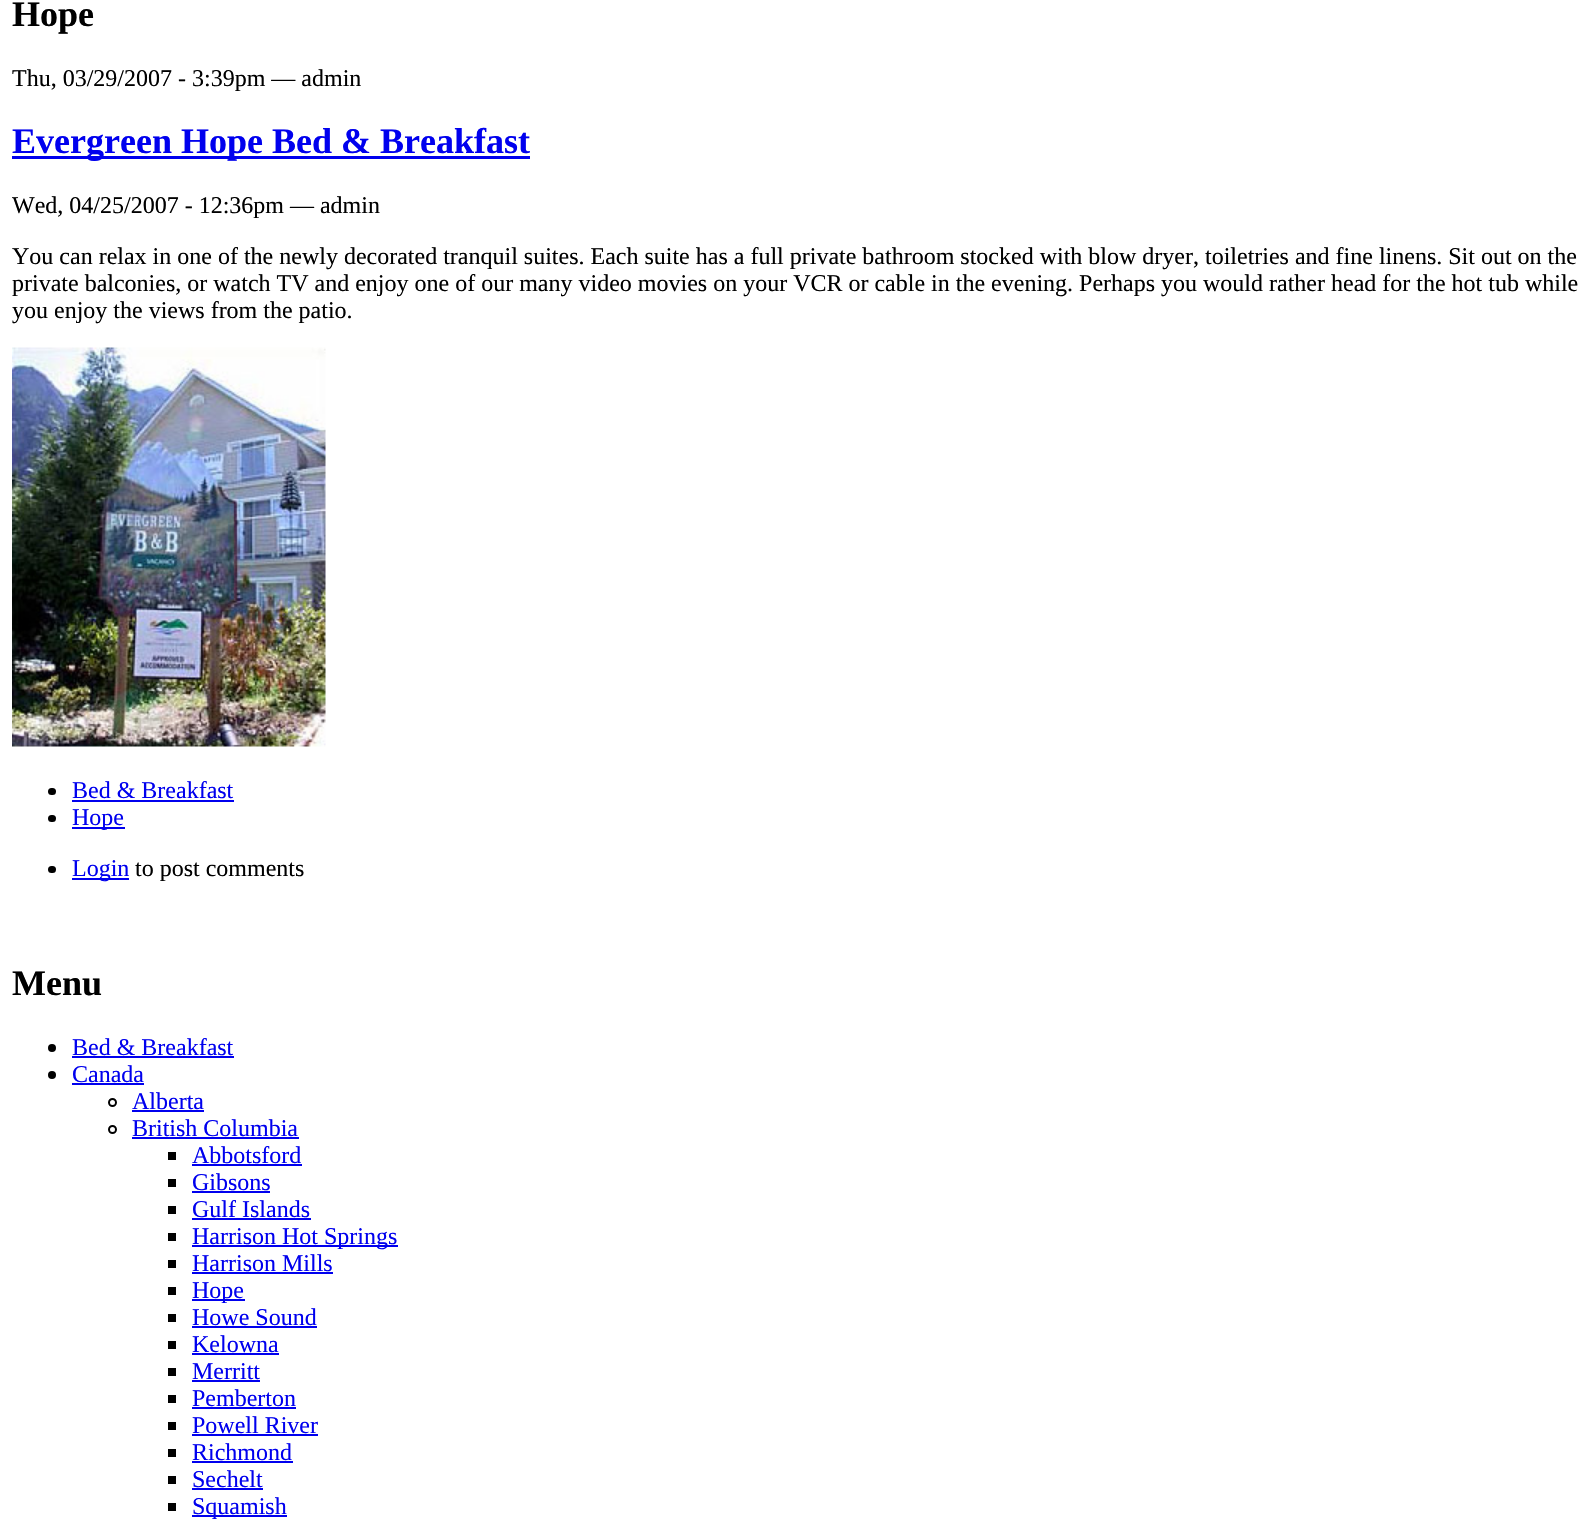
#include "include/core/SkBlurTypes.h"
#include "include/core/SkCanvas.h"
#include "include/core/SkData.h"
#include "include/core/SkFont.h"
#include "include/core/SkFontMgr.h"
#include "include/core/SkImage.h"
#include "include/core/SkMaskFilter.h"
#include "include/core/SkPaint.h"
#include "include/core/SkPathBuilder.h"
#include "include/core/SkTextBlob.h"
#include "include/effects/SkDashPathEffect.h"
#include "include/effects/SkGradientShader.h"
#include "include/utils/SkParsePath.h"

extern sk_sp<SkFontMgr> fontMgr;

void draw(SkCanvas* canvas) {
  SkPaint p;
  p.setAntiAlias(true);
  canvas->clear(SK_ColorWHITE);
  p.setColor(SkColorSetRGB(0, 0, 238));
  canvas->drawRect(SkRect::MakeLTRB(12, 156, 530, 159), p);
  canvas->drawImageRect(SkImages::DeferredFromEncodedData(SkData::MakeFromFileName("images/1.png")), SkRect::MakeLTRB(12, 347, 326, 747), SkSamplingOptions());
  p.setColor(SK_ColorBLACK);
  canvas->drawRoundRect(SkRect::MakeLTRB(48, 788, 56, 795), 3.5f, 3.5f, p);
  p.setColor(SkColorSetRGB(0, 0, 238));
  canvas->drawRect(SkRect::MakeLTRB(72, 800, 234, 802), p);
  p.setColor(SK_ColorBLACK);
  canvas->drawRoundRect(SkRect::MakeLTRB(48, 815, 56, 822), 3.5f, 3.5f, p);
  p.setColor(SkColorSetRGB(0, 0, 238));
  canvas->drawRect(SkRect::MakeLTRB(72, 827, 125, 829), p);
  p.setColor(SK_ColorBLACK);
  canvas->drawRoundRect(SkRect::MakeLTRB(48, 866, 56, 873), 3.5f, 3.5f, p);
  p.setColor(SkColorSetRGB(0, 0, 238));
  canvas->drawRect(SkRect::MakeLTRB(72, 878, 129, 880), p);
  p.setColor(SK_ColorBLACK);
  canvas->drawCircle(52, 1048, 4, p);
  p.setColor(SkColorSetRGB(0, 0, 238));
  canvas->drawRect(SkRect::MakeLTRB(72, 1056, 234, 1058), p);
  p.setColor(SK_ColorBLACK);
  canvas->drawCircle(52, 1075, 4, p);
  p.setColor(SkColorSetRGB(0, 0, 238));
  canvas->drawRect(SkRect::MakeLTRB(72, 1083, 144, 1085), p);
  p.setStyle(SkPaint::kStroke_Style);
  p.setStrokeWidth(2);
  p.setColor(SK_ColorBLACK);
  canvas->drawCircle(112.5f, 1102.5f, 3.5f, p);
  p.setStyle(SkPaint::kFill_Style);
  p.setColor(SkColorSetRGB(0, 0, 238));
  canvas->drawRect(SkRect::MakeLTRB(132, 1110, 204, 1112), p);
  p.setStyle(SkPaint::kStroke_Style);
  p.setColor(SK_ColorBLACK);
  canvas->drawCircle(112.5f, 1129.5f, 3.5f, p);
  p.setStyle(SkPaint::kFill_Style);
  p.setColor(SkColorSetRGB(0, 0, 238));
  canvas->drawRect(SkRect::MakeLTRB(132, 1137, 299, 1139), p);
  p.setColor(SK_ColorBLACK);
  canvas->drawRect(SkRect::MakeLTRB(168, 1152, 176, 1160), p);
  p.setColor(SkColorSetRGB(0, 0, 238));
  canvas->drawRect(SkRect::MakeLTRB(192, 1164, 302, 1166), p);
  p.setColor(SK_ColorBLACK);
  canvas->drawRect(SkRect::MakeLTRB(168, 1179, 176, 1187), p);
  p.setColor(SkColorSetRGB(0, 0, 238));
  canvas->drawRect(SkRect::MakeLTRB(192, 1191, 270, 1193), p);
  p.setColor(SK_ColorBLACK);
  canvas->drawRect(SkRect::MakeLTRB(168, 1206, 176, 1214), p);
  p.setColor(SkColorSetRGB(0, 0, 238));
  canvas->drawRect(SkRect::MakeLTRB(192, 1218, 311, 1220), p);
  p.setColor(SK_ColorBLACK);
  canvas->drawRect(SkRect::MakeLTRB(168, 1233, 176, 1241), p);
  p.setColor(SkColorSetRGB(0, 0, 238));
  canvas->drawRect(SkRect::MakeLTRB(192, 1245, 398, 1247), p);
  p.setColor(SK_ColorBLACK);
  canvas->drawRect(SkRect::MakeLTRB(168, 1260, 176, 1268), p);
  p.setColor(SkColorSetRGB(0, 0, 238));
  canvas->drawRect(SkRect::MakeLTRB(192, 1272, 333, 1274), p);
  p.setColor(SK_ColorBLACK);
  canvas->drawRect(SkRect::MakeLTRB(168, 1287, 176, 1295), p);
  p.setColor(SkColorSetRGB(0, 0, 238));
  canvas->drawRect(SkRect::MakeLTRB(192, 1299, 245, 1301), p);
  p.setColor(SK_ColorBLACK);
  canvas->drawRect(SkRect::MakeLTRB(168, 1314, 176, 1322), p);
  p.setColor(SkColorSetRGB(0, 0, 238));
  canvas->drawRect(SkRect::MakeLTRB(192, 1326, 317, 1328), p);
  p.setColor(SK_ColorBLACK);
  canvas->drawRect(SkRect::MakeLTRB(168, 1341, 176, 1349), p);
  p.setColor(SkColorSetRGB(0, 0, 238));
  canvas->drawRect(SkRect::MakeLTRB(192, 1353, 279, 1355), p);
  p.setColor(SK_ColorBLACK);
  canvas->drawRect(SkRect::MakeLTRB(168, 1368, 176, 1376), p);
  p.setColor(SkColorSetRGB(0, 0, 238));
  canvas->drawRect(SkRect::MakeLTRB(192, 1380, 260, 1382), p);
  p.setColor(SK_ColorBLACK);
  canvas->drawRect(SkRect::MakeLTRB(168, 1395, 176, 1403), p);
  p.setColor(SkColorSetRGB(0, 0, 238));
  canvas->drawRect(SkRect::MakeLTRB(192, 1407, 296, 1409), p);
  p.setColor(SK_ColorBLACK);
  canvas->drawRect(SkRect::MakeLTRB(168, 1422, 176, 1430), p);
  p.setColor(SkColorSetRGB(0, 0, 238));
  canvas->drawRect(SkRect::MakeLTRB(192, 1434, 318, 1436), p);
  p.setColor(SK_ColorBLACK);
  canvas->drawRect(SkRect::MakeLTRB(168, 1449, 176, 1457), p);
  p.setColor(SkColorSetRGB(0, 0, 238));
  canvas->drawRect(SkRect::MakeLTRB(192, 1461, 293, 1463), p);
  p.setColor(SK_ColorBLACK);
  canvas->drawRect(SkRect::MakeLTRB(168, 1476, 176, 1484), p);
  p.setColor(SkColorSetRGB(0, 0, 238));
  canvas->drawRect(SkRect::MakeLTRB(192, 1488, 263, 1490), p);
  p.setColor(SK_ColorBLACK);
  canvas->drawRect(SkRect::MakeLTRB(168, 1503, 176, 1511), p);
  p.setColor(SkColorSetRGB(0, 0, 238));
  canvas->drawRect(SkRect::MakeLTRB(192, 1515, 287, 1517), p);
  SkFont font1(fontMgr->matchFamilyStyle("Liberation Serif", SkFontStyle::Bold()), 36);
  font1.setSubpixel(true);
  p.setColor(SK_ColorBLACK);
  canvas->drawString("Hope", 12, 26, font1, p);
  SkFont font2(fontMgr->matchFamilyStyle("Liberation Serif", SkFontStyle::Normal()), 24);
  font2.setSubpixel(true);
  canvas->drawString("Thu, 03/29/2007 - 3:39pm — admin", 12, 86, font2, p);
  p.setColor(SkColorSetRGB(0, 0, 238));
  canvas->drawString("Evergreen Hope Bed & Breakfast", 12, 153, font1, p);
  p.setColor(SK_ColorBLACK);
  canvas->drawString("Wed, 04/25/2007 - 12:36pm — admin", 12, 213, font2, p);
  canvas->drawString("You can relax in one of the newly decorated tranquil suites. Each suite has a full private bathroom stocked with blow dryer, toiletries and fine linens. Sit out on the", 12, 264, font2, p);
  canvas->drawString("private balconies, or watch TV and enjoy one of our many video movies on your VCR or cable in the evening. Perhaps you would rather head for the hot tub while", 12, 291, font2, p);
  canvas->drawString("you enjoy the views from the patio.", 12, 318, font2, p);
  p.setColor(SkColorSetRGB(0, 0, 238));
  canvas->drawString("Bed & Breakfast", 72, 798, font2, p);
  canvas->drawString("Hope", 72, 825, font2, p);
  canvas->drawString("Login", 72, 876, font2, p);
  p.setColor(SK_ColorBLACK);
  canvas->drawString("to post comments", 135, 876, font2, p);
  canvas->drawString("Menu", 12, 995, font1, p);
  p.setColor(SkColorSetRGB(0, 0, 238));
  canvas->drawString("Bed & Breakfast", 72, 1055, font2, p);
  canvas->drawString("Canada", 72, 1082, font2, p);
  canvas->drawString("Alberta", 132, 1109, font2, p);
  canvas->drawString("British Columbia", 132, 1136, font2, p);
  canvas->drawString("Abbotsford", 192, 1163, font2, p);
  canvas->drawString("Gibsons", 192, 1190, font2, p);
  canvas->drawString("Gulf Islands", 192, 1217, font2, p);
  canvas->drawString("Harrison Hot Springs", 192, 1244, font2, p);
  canvas->drawString("Harrison Mills", 192, 1271, font2, p);
  canvas->drawString("Hope", 192, 1298, font2, p);
  canvas->drawString("Howe Sound", 192, 1325, font2, p);
  canvas->drawString("Kelowna", 192, 1352, font2, p);
  canvas->drawString("Merritt", 192, 1379, font2, p);
  canvas->drawString("Pemberton", 192, 1406, font2, p);
  canvas->drawString("Powell River", 192, 1433, font2, p);
  canvas->drawString("Richmond", 192, 1460, font2, p);
  canvas->drawString("Sechelt", 192, 1487, font2, p);
  canvas->drawString("Squamish", 192, 1514, font2, p);
}
